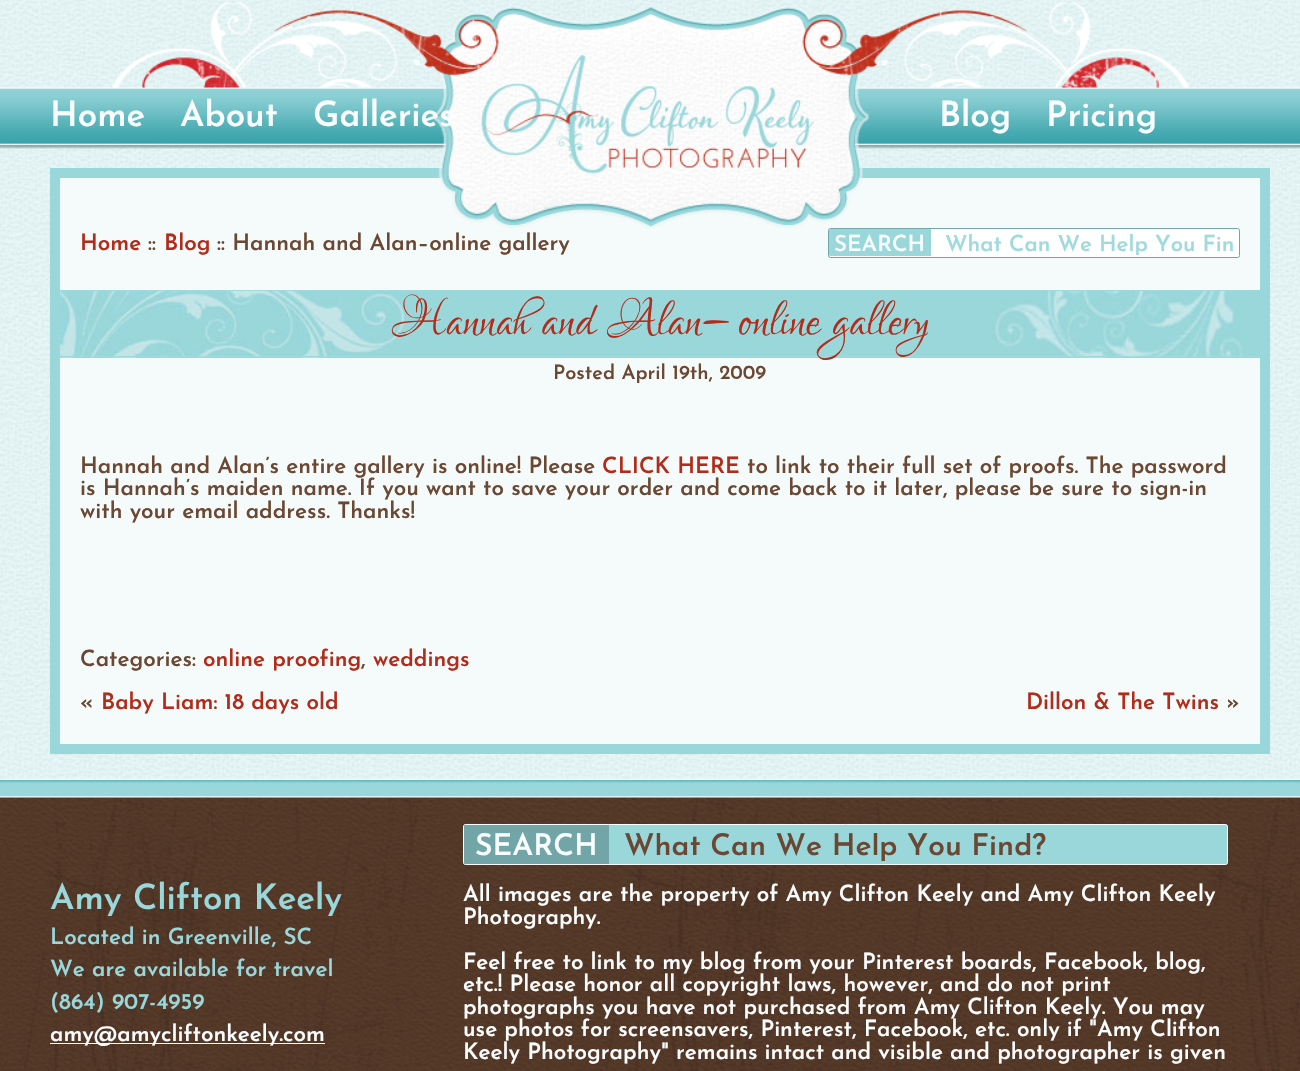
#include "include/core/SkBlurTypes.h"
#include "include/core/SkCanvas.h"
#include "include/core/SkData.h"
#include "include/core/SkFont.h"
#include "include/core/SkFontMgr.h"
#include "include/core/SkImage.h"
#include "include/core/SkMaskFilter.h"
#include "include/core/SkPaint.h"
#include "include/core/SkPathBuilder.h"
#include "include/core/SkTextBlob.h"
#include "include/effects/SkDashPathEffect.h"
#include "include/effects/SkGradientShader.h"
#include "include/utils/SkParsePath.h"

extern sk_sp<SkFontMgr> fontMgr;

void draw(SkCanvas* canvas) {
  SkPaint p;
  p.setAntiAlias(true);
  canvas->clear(SK_ColorWHITE);
  canvas->drawImageRect(SkImages::DeferredFromEncodedData(SkData::MakeFromFileName("images/1.png")), SkRect::MakeLTRB(0, 0, 1300, 779), SkSamplingOptions());
  canvas->drawImageRect(SkImages::DeferredFromEncodedData(SkData::MakeFromFileName("images/2.png")), SkRect::MakeLTRB(0, 87, 1300, 149), SkSamplingOptions());
  p.setColor(SkColorSetRGB(245, 251, 251));
  canvas->drawRect(SkRect::MakeLTRB(55, 173, 1265, 749), p);
  p.setStyle(SkPaint::kStroke_Style);
  p.setStrokeWidth(10);
  p.setColor(SkColorSetRGB(153, 215, 219));
  canvas->drawRect(SkRect::MakeLTRB(55, 173, 1265, 749), p);
  p.setStyle(SkPaint::kFill_Style);
  p.setColor(SK_ColorWHITE);
  canvas->drawRoundRect(SkRect::MakeLTRB(828.5f, 228.5f, 1239.5f, 257.5f), 2, 2, p);
  p.setStyle(SkPaint::kStroke_Style);
  p.setStrokeWidth(1);
  p.setColor(SkColorSetRGB(114, 165, 168));
  canvas->drawRoundRect(SkRect::MakeLTRB(828.5f, 228.5f, 1239.5f, 257.5f), 2, 2, p);
  canvas->drawImageRect(SkImages::DeferredFromEncodedData(SkData::MakeFromFileName("images/3.png")), SkRect::MakeLTRB(111, 2, 1190, 229), SkSamplingOptions());
  p.setStyle(SkPaint::kFill_Style);
  p.setColor(SkColorSetRGB(153, 215, 219));
  canvas->drawPath(SkPathBuilder().moveTo(830, 229).lineTo(931, 229).lineTo(931, 256).lineTo(830, 256).cubicTo(829.5f, 256, 829, 255.5f, 829, 255).lineTo(829, 230).cubicTo(829, 229.5f, 829.5f, 229, 830, 229).close().detach(), p);
  canvas->drawRect(SkRect::MakeLTRB(60, 291, 1260, 358), p);
  canvas->drawImageRect(SkImages::DeferredFromEncodedData(SkData::MakeFromFileName("images/4.png")), SkRect::MakeLTRB(60, 291, 1243, 358), SkSamplingOptions());
  p.setColor(SkColorSetRGB(159, 218, 221));
  canvas->drawRect(SkRect::MakeLTRB(60, 290, 1260, 291), p);
  canvas->drawRect(SkRect::MakeLTRB(60, 356, 1260, 357), p);
  canvas->drawImageRect(SkImages::DeferredFromEncodedData(SkData::MakeFromFileName("images/5.png")), SkRect::MakeLTRB(0, 778, 1300, 1071), SkSamplingOptions());
  p.setColor(SkColorSetRGB(250, 253, 253));
  canvas->drawRect(SkRect::MakeLTRB(50, 1043, 325, 1044), p);
  p.setColor(SkColorSetRGB(153, 215, 219));
  canvas->drawRoundRect(SkRect::MakeLTRB(463.5f, 824.5f, 1227.5f, 864.5f), 2, 2, p);
  p.setStyle(SkPaint::kStroke_Style);
  p.setColor(SK_ColorWHITE);
  canvas->drawRoundRect(SkRect::MakeLTRB(463.5f, 824.5f, 1227.5f, 864.5f), 2, 2, p);
  p.setStyle(SkPaint::kFill_Style);
  p.setColor(SkColorSetRGB(114, 165, 168));
  canvas->drawPath(SkPathBuilder().moveTo(465, 825).lineTo(609, 825).lineTo(609, 864).lineTo(465, 864).cubicTo(464.5f, 864, 464, 863.5f, 464, 863).lineTo(464, 826).cubicTo(464, 825.5f, 464.5f, 825, 465, 825).close().detach(), p);
  SkFont font1(fontMgr->matchFamilyStyle("Josefin Sans", SkFontStyle(600, SkFontStyle::kNormal_Width, SkFontStyle::kUpright_Slant)), 35);
  font1.setSubpixel(true);
  p.setColor(SkColorSetRGB(250, 253, 253));
  canvas->drawString("Home", 50, 126, font1, p);
  canvas->drawString("About", 180, 126, font1, p);
  canvas->drawString("Galleries", 313, 126, font1, p);
  canvas->drawString("Blog", 939, 126, font1, p);
  canvas->drawString("Pricing", 1046, 126, font1, p);
  SkFont font2(fontMgr->matchFamilyStyle("Josefin Sans", SkFontStyle(600, SkFontStyle::kNormal_Width, SkFontStyle::kUpright_Slant)), 22.5f);
  font2.setSubpixel(true);
  p.setColor(SkColorSetRGB(177, 44, 26));
  canvas->drawString("Home", 80, 250, font2, p);
  p.setColor(SkColorSetRGB(106, 72, 51));
  canvas->drawString("::", 148, 250, font2, p);
  p.setColor(SkColorSetRGB(177, 44, 26));
  canvas->drawString("Blog", 164, 250, font2, p);
  p.setColor(SkColorSetRGB(106, 72, 51));
  canvas->drawString(":: Hannah and Alan–online gallery", 217, 250, font2, p);
  SkFont font3(fontMgr->matchFamilyStyle("Josefin Sans", SkFontStyle(600, SkFontStyle::kNormal_Width, SkFontStyle::kUpright_Slant)), 22.25f);
  font3.setSubpixel(true);
  p.setColor(SkColorSetRGB(250, 253, 253));
  canvas->drawString("SEARCH", 834, 251, font3, p);
  canvas->save();
  canvas->clipRect(SkRect::MakeLTRB(945, 234, 1234, 255));
  p.setColor(SkColorSetRGB(159, 218, 221));
  canvas->drawString("What Can We Help You Fin", 945, 251, font3, p);
  canvas->restore();
  SkFont font4(fontMgr->matchFamilyStyle("Lovers Quarrel", SkFontStyle::Normal()), 65);
  font4.setSubpixel(true);
  p.setColor(SkColorSetRGB(177, 44, 26));
  canvas->drawString("Hannah and Alan–online gallery", 391, 334, font4, p);
  SkFont font5(fontMgr->matchFamilyStyle("Josefin Sans", SkFontStyle(600, SkFontStyle::kNormal_Width, SkFontStyle::kUpright_Slant)), 20);
  font5.setSubpixel(true);
  p.setColor(SkColorSetRGB(106, 72, 51));
  canvas->drawString("Posted April 19th, 2009", 553, 379, font5, p);
  canvas->drawString("Hannah and Alan’s entire gallery is online! Please", 80, 473, font2, p);
  p.setColor(SkColorSetRGB(177, 44, 26));
  canvas->drawString("CLICK HERE", 602, 473, font2, p);
  p.setColor(SkColorSetRGB(106, 72, 51));
  canvas->drawString("to link to their full set of proofs. The password", 747, 473, font2, p);
  canvas->drawString("is Hannah’s maiden name. If you want to save your order and come back to it later, please be sure to sign-in", 80, 495, font2, p);
  canvas->drawString("with your email address. Thanks!", 80, 518, font2, p);
  canvas->drawString("Categories:", 80, 666, font2, p);
  p.setColor(SkColorSetRGB(177, 44, 26));
  canvas->drawString("online proofing", 203, 666, font2, p);
  p.setColor(SkColorSetRGB(106, 72, 51));
  canvas->drawString(",", 361, 666, font2, p);
  p.setColor(SkColorSetRGB(177, 44, 26));
  canvas->drawString("weddings", 373, 666, font2, p);
  p.setColor(SkColorSetRGB(106, 72, 51));
  canvas->drawString("«", 80, 709, font2, p);
  p.setColor(SkColorSetRGB(177, 44, 26));
  canvas->drawString("Baby Liam: 18 days old", 101, 709, font2, p);
  canvas->drawString("Dillon & The Twins", 1026, 709, font2, p);
  p.setColor(SkColorSetRGB(106, 72, 51));
  canvas->drawString("»", 1226, 709, font2, p);
  p.setColor(SkColorSetRGB(153, 215, 219));
  canvas->drawString("Amy Clifton Keely", 50, 909, font1, p);
  canvas->drawString("Located in Greenville, SC", 50, 944, font2, p);
  canvas->drawString("We are available for travel", 50, 976, font2, p);
  canvas->drawString("(864) 907-4959", 50, 1009, font2, p);
  p.setColor(SkColorSetRGB(250, 253, 253));
  canvas->drawString("amy@amycliftonkeely.com", 50, 1041, font2, p);
  SkFont font6(fontMgr->matchFamilyStyle("Josefin Sans", SkFontStyle(600, SkFontStyle::kNormal_Width, SkFontStyle::kUpright_Slant)), 30);
  font6.setSubpixel(true);
  canvas->drawString("SEARCH", 475, 855, font6, p);
  canvas->save();
  canvas->clipRect(SkRect::MakeLTRB(624, 833, 1219, 863));
  p.setColor(SkColorSetRGB(106, 72, 51));
  canvas->drawString("What Can We Help You Find?", 624, 855, font6, p);
  canvas->restore();
  p.setColor(SkColorSetRGB(250, 253, 253));
  canvas->drawString("All images are the property of Amy Clifton Keely and Amy Clifton Keely", 463, 901, font2, p);
  canvas->drawString("Photography.", 463, 924, font2, p);
  canvas->drawString("Feel free to link to my blog from your Pinterest boards, Facebook, blog,", 463, 969, font2, p);
  canvas->drawString("etc.! Please honor all copyright laws, however, and do not print", 463, 991, font2, p);
  canvas->drawString("photographs you have not purchased from Amy Clifton Keely. You may", 463, 1014, font2, p);
  canvas->drawString("use photos for screensavers, Pinterest, Facebook, etc. only if \"Amy Clifton", 463, 1036, font2, p);
  canvas->drawString("Keely Photography\" remains intact and visible and photographer is given", 463, 1059, font2, p);
}
